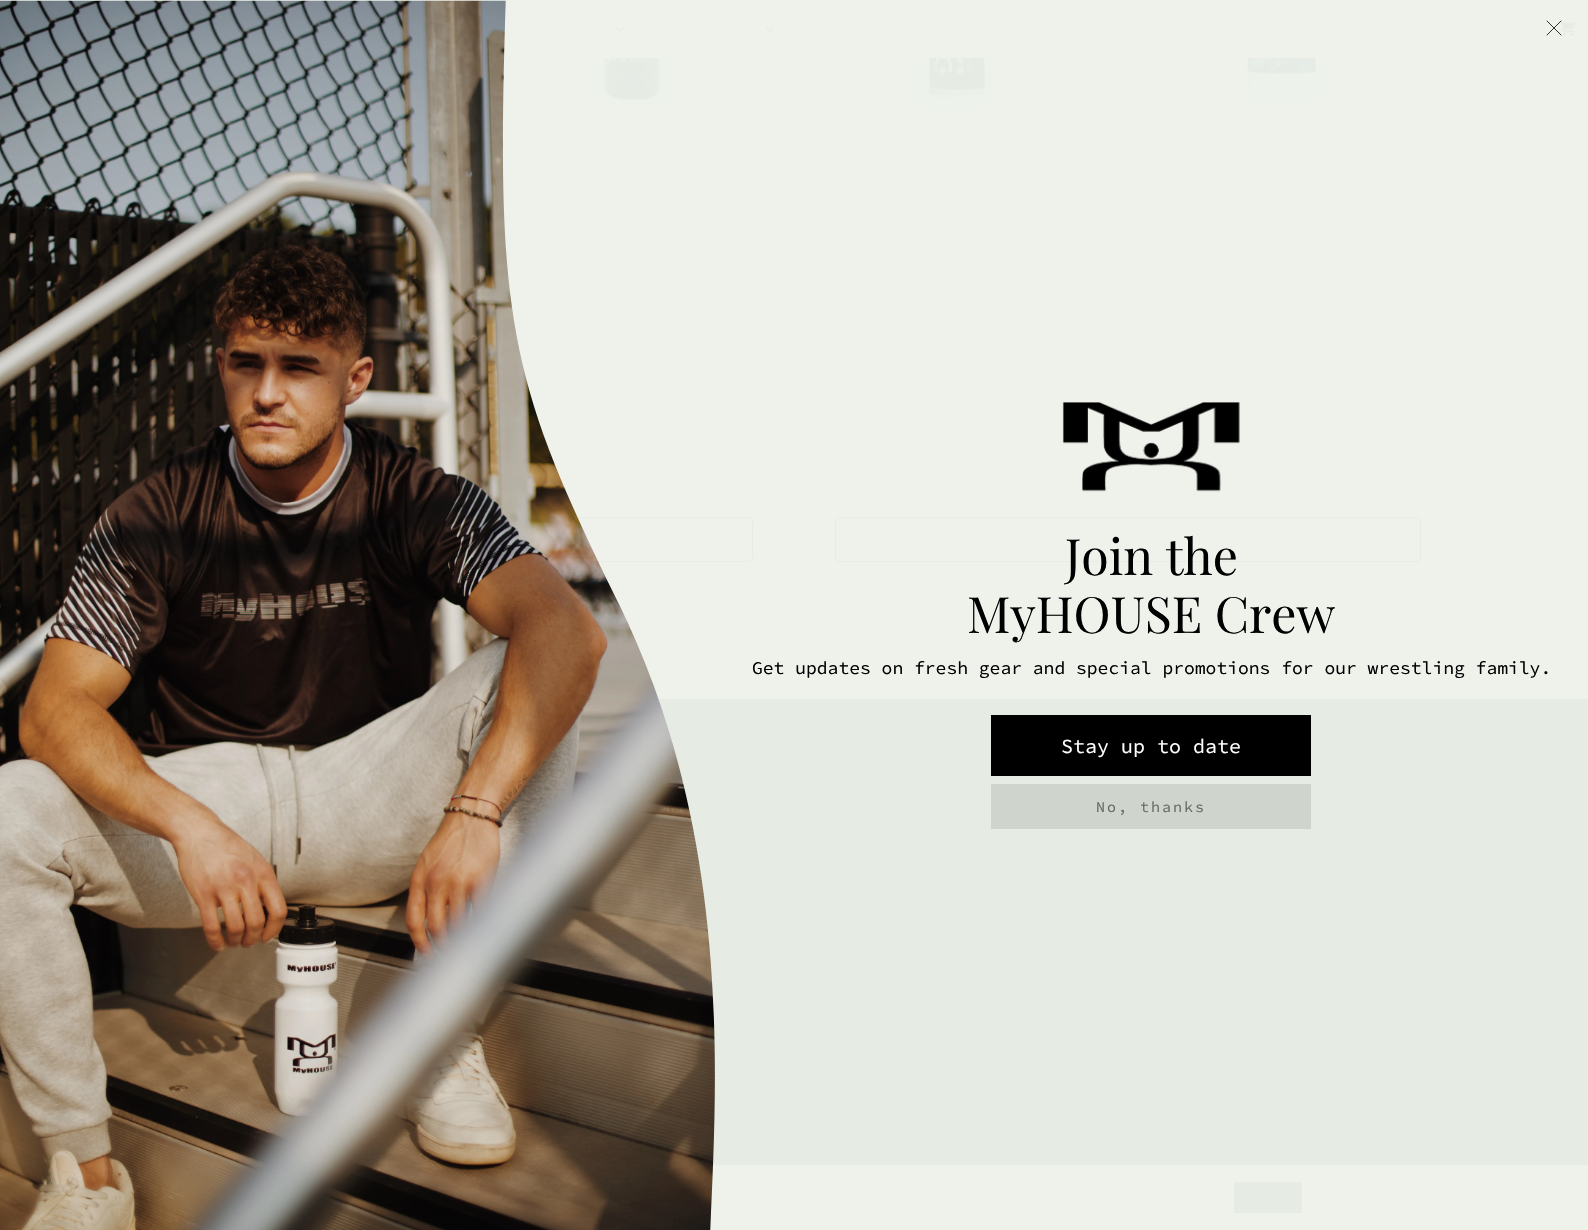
#include "include/core/SkBlurTypes.h"
#include "include/core/SkCanvas.h"
#include "include/core/SkData.h"
#include "include/core/SkFont.h"
#include "include/core/SkFontMgr.h"
#include "include/core/SkImage.h"
#include "include/core/SkMaskFilter.h"
#include "include/core/SkPaint.h"
#include "include/core/SkPathBuilder.h"
#include "include/core/SkTextBlob.h"
#include "include/effects/SkDashPathEffect.h"
#include "include/effects/SkGradientShader.h"
#include "include/utils/SkParsePath.h"

extern sk_sp<SkFontMgr> fontMgr;

void draw(SkCanvas* canvas) {
  SkPaint p;
  p.setAntiAlias(true);
  auto spacedText = [&](const char* s, float x, float y, const SkFont& font, const SkPaint& ink, float letter, float word) {
    std::vector<SkGlyphID> glyphs(font.countText(s, strlen(s), SkTextEncoding::kUTF8));
    std::vector<float> xs(glyphs.size());
    font.textToGlyphs(s, strlen(s), SkTextEncoding::kUTF8, glyphs);
    font.getXPos(glyphs, xs, x);
    float extra = 0;
    for (size_t i = 0; i < glyphs.size(); i++) {
      xs[i] += extra;
      extra += letter + word * (glyphs[i] == font.unicharToGlyph(' '));
    }
    canvas->drawTextBlob(SkTextBlob::MakeFromPosHGlyphs(glyphs, xs, y, font), 0, 0, ink);
  };
  canvas->clear(SkColorSetRGB(238, 242, 235));
  canvas->drawImageRect(SkImages::DeferredFromEncodedData(SkData::MakeFromFileName("images/1.png")), SkRect::MakeLTRB(615, 27, 624, 32), SkSamplingOptions());
  canvas->drawImageRect(SkImages::DeferredFromEncodedData(SkData::MakeFromFileName("images/1.png")), SkRect::MakeLTRB(765, 27, 774, 32), SkSamplingOptions());
  canvas->drawImageRect(SkImages::DeferredFromEncodedData(SkData::MakeFromFileName("images/2.png")), SkRect::MakeLTRB(1559, 20, 1576, 36), SkSamplingOptions());
  canvas->drawImageRect(SkImages::DeferredFromEncodedData(SkData::MakeFromFileName("images/3.png")), SkRect::MakeLTRB(595, 58, 671, 101), SkSamplingOptions());
  canvas->drawImageRect(SkImages::DeferredFromEncodedData(SkData::MakeFromFileName("images/4.png")), SkRect::MakeLTRB(920, 58, 989, 108), SkSamplingOptions());
  canvas->drawImageRect(SkImages::DeferredFromEncodedData(SkData::MakeFromFileName("images/5.png")), SkRect::MakeLTRB(1245, 58, 1322, 101), SkSamplingOptions());
  p.setStyle(SkPaint::kStroke_Style);
  p.setStrokeWidth(1);
  p.setColor(SkColorSetRGB(232, 236, 229));
  canvas->drawRoundRect(SkRect::MakeLTRB(167.5f, 517.5f, 752.5f, 561.5f), 3.5f, 3.5f, p);
  canvas->drawRoundRect(SkRect::MakeLTRB(835.5f, 517.5f, 1420.5f, 561.5f), 3.5f, 3.5f, p);
  p.setStyle(SkPaint::kFill_Style);
  p.setColor(SkColorSetRGB(230, 235, 227));
  canvas->drawRect(SkRect::MakeLTRB(658, 699, 1588, 1165), p);
  canvas->drawImageRect(SkImages::DeferredFromEncodedData(SkData::MakeFromFileName("images/6.png")), SkRect::MakeLTRB(0, 0, 715, 1230), SkSamplingOptions());
  p.setStyle(SkPaint::kStroke_Style);
  p.setStrokeWidth(0.8f);
  p.setStrokeCap(SkPaint::kRound_Cap);
  p.setColor(SK_ColorBLACK);
  canvas->drawPath(SkPathBuilder().moveTo(1547, 21).lineTo(1561, 35).moveTo(1561, 21).lineTo(1547, 35).detach(), p);
  canvas->drawImageRect(SkImages::DeferredFromEncodedData(SkData::MakeFromFileName("images/7.png")), SkRect::MakeLTRB(1062, 402, 1240, 492), SkSamplingOptions());
  p.setStyle(SkPaint::kFill_Style);
  canvas->drawRect(SkRect::MakeLTRB(991, 715, 1311, 776), p);
  p.setColor(SkColorSetRGB(207, 212, 204));
  canvas->drawRect(SkRect::MakeLTRB(991, 784, 1311, 829), p);
  p.setColor(SkColorSetRGB(230, 235, 227));
  canvas->drawRect(SkRect::MakeLTRB(1234, 1182, 1302, 1213), p);
  SkFont font1(fontMgr->matchFamilyStyle("Playfair Display", SkFontStyle::Normal()), 50);
  font1.setSubpixel(true);
  p.setColor(SK_ColorBLACK);
  canvas->drawString("Join the", 1065, 575, font1, p);
  canvas->drawString("MyHOUSE Crew", 967, 633, font1, p);
  SkFont font2(fontMgr->matchFamilyStyle("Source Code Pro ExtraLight", SkFontStyle(200, SkFontStyle::kNormal_Width, SkFontStyle::kUpright_Slant)), 18);
  font2.setSubpixel(true);
  canvas->drawString("Get updates on fresh gear and special promotions for our wrestling family.", 752, 674, font2, p);
  SkFont font3(fontMgr->matchFamilyStyle("Source Code Pro ExtraLight", SkFontStyle(200, SkFontStyle::kNormal_Width, SkFontStyle::kUpright_Slant)), 20);
  font3.setSubpixel(true);
  p.setColor(SK_ColorWHITE);
  canvas->drawString("Stay up to date", 1061, 753, font3, p);
  SkFont font4(fontMgr->matchFamilyStyle("Source Code Pro ExtraLight", SkFontStyle(200, SkFontStyle::kNormal_Width, SkFontStyle::kUpright_Slant)), 15);
  font4.setSubpixel(true);
  p.setColor(SkColorSetRGB(104, 106, 102));
  spacedText("No, thanks", 1096, 812, font4, p, 2, 0);
}
